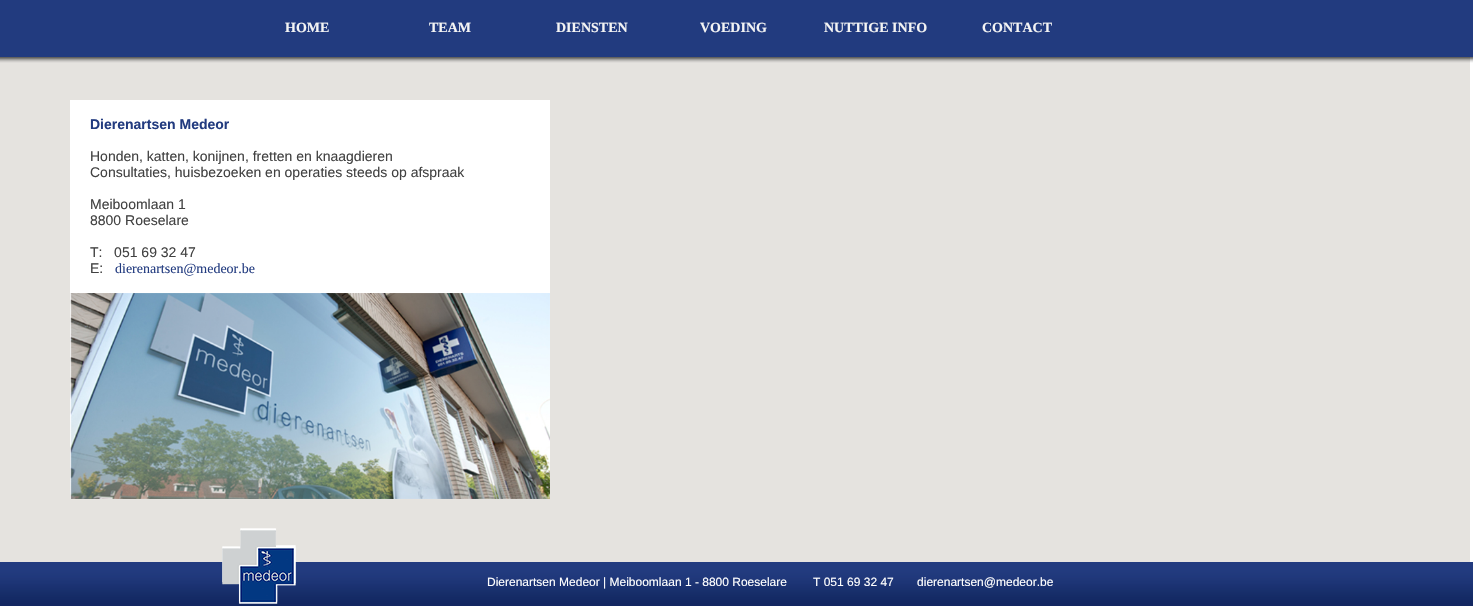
#include "include/core/SkBlurTypes.h"
#include "include/core/SkCanvas.h"
#include "include/core/SkData.h"
#include "include/core/SkFont.h"
#include "include/core/SkFontMgr.h"
#include "include/core/SkImage.h"
#include "include/core/SkMaskFilter.h"
#include "include/core/SkPaint.h"
#include "include/core/SkPathBuilder.h"
#include "include/core/SkTextBlob.h"
#include "include/effects/SkDashPathEffect.h"
#include "include/effects/SkGradientShader.h"
#include "include/utils/SkParsePath.h"

extern sk_sp<SkFontMgr> fontMgr;

void draw(SkCanvas* canvas) {
  SkPaint p;
  p.setAntiAlias(true);
  canvas->clear(SK_ColorWHITE);
  p.setColor(SkColorSetRGB(229, 227, 223));
  canvas->drawRect(SkRect::MakeLTRB(0, 57, 1470, 562), p);
  canvas->drawImageRect(SkImages::DeferredFromEncodedData(SkData::MakeFromFileName("images/1.png")), SkRect::MakeLTRB(0, 0, 1473, 63), SkSamplingOptions());
  p.setColor(SK_ColorWHITE);
  canvas->drawRect(SkRect::MakeLTRB(70, 100, 550, 116), p);
  canvas->drawRect(SkRect::MakeLTRB(70, 116, 550, 277), p);
  canvas->drawRect(SkRect::MakeLTRB(70, 277, 550, 293), p);
  canvas->drawImageRect(SkImages::DeferredFromEncodedData(SkData::MakeFromFileName("images/2.png")), SkRect::MakeLTRB(70, 293, 550, 499), SkSamplingOptions());
  canvas->drawImageRect(SkImages::DeferredFromEncodedData(SkData::MakeFromFileName("images/3.png")), SkRect::MakeLTRB(0, 562, 1473, 606), SkSamplingOptions());
  canvas->drawImageRect(SkImages::DeferredFromEncodedData(SkData::MakeFromFileName("images/4.png")), SkRect::MakeLTRB(222, 528, 296, 604), SkSamplingOptions());
  SkFont font1(fontMgr->matchFamilyStyle("Liberation Serif", SkFontStyle::Bold()), 14);
  font1.setSubpixel(true);
  p.setColor(SkColorSetRGB(244, 244, 244));
  canvas->drawString("HOME", 285, 32, font1, p);
  canvas->drawString("TEAM", 429, 32, font1, p);
  canvas->drawString("DIENSTEN", 556, 32, font1, p);
  canvas->drawString("VOEDING", 700, 32, font1, p);
  canvas->drawString("NUTTIGE INFO", 824, 32, font1, p);
  canvas->drawString("CONTACT", 982, 32, font1, p);
  SkFont font2(fontMgr->matchFamilyStyle("Liberation Sans", SkFontStyle::Bold()), 14);
  font2.setSubpixel(true);
  p.setColor(SkColorSetRGB(34, 59, 127));
  canvas->drawString("Dierenartsen Medeor", 90, 129, font2, p);
  SkFont font3(fontMgr->matchFamilyStyle("Liberation Sans", SkFontStyle::Normal()), 14);
  font3.setSubpixel(true);
  p.setColor(SkColorSetRGB(65, 65, 65));
  canvas->drawString("Honden, katten, konijnen, fretten en knaagdieren", 90, 161, font3, p);
  canvas->drawString("Consultaties, huisbezoeken en operaties steeds op afspraak", 90, 177, font3, p);
  canvas->drawString("Meiboomlaan 1", 90, 209, font3, p);
  canvas->drawString("8800 Roeselare", 90, 225, font3, p);
  canvas->drawString("T:   051 69 32 47", 90, 257, font3, p);
  canvas->drawString("E:", 90, 273, font3, p);
  SkFont font4(fontMgr->matchFamilyStyle("Liberation Serif", SkFontStyle::Normal()), 14);
  font4.setSubpixel(true);
  p.setColor(SkColorSetRGB(34, 59, 127));
  canvas->drawString("dierenartsen@medeor.be", 115, 273, font4, p);
  SkFont font5(fontMgr->matchFamilyStyle("Liberation Sans", SkFontStyle::Normal()), 12);
  font5.setSubpixel(true);
  p.setColor(SK_ColorWHITE);
  canvas->drawString("Dierenartsen Medeor | Meiboomlaan 1 - 8800 Roeselare", 487, 586, font5, p);
  canvas->drawString("T 051 69 32 47       dierenartsen@medeor.be", 813, 586, font5, p);
}
